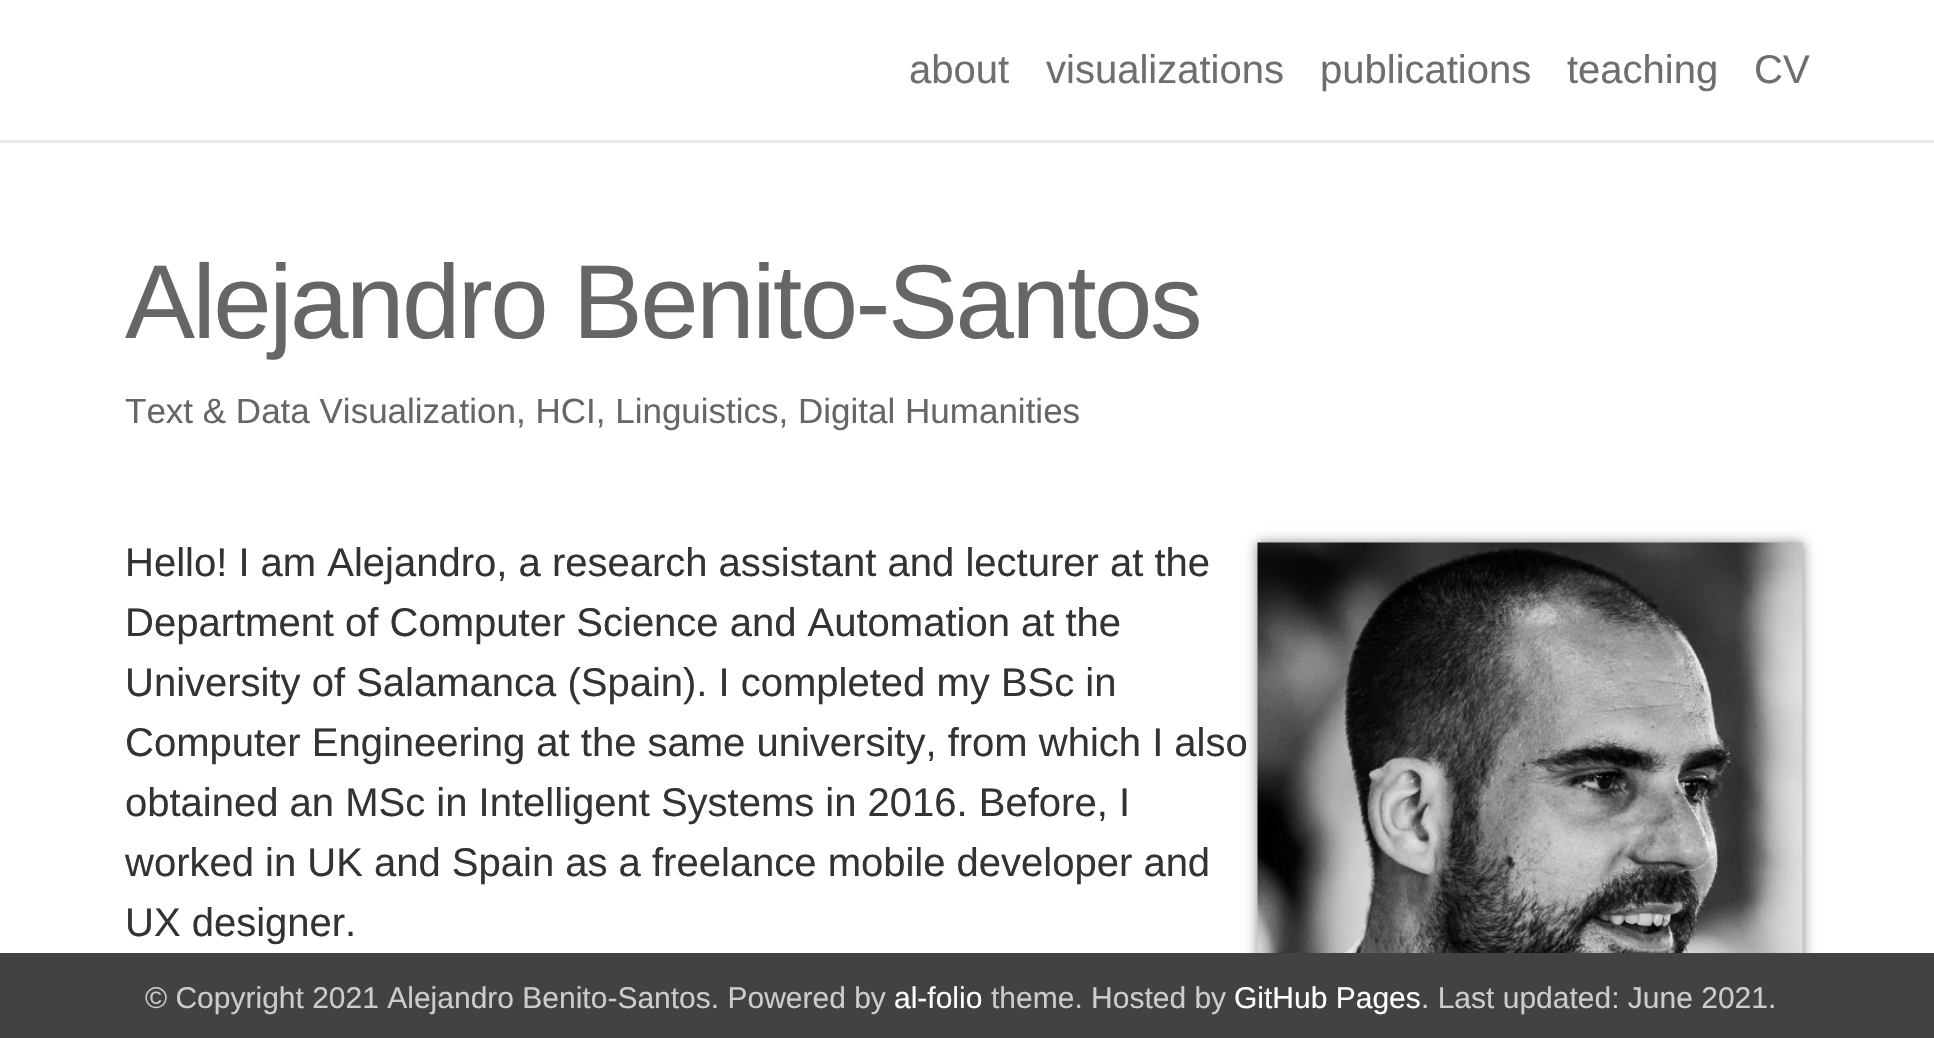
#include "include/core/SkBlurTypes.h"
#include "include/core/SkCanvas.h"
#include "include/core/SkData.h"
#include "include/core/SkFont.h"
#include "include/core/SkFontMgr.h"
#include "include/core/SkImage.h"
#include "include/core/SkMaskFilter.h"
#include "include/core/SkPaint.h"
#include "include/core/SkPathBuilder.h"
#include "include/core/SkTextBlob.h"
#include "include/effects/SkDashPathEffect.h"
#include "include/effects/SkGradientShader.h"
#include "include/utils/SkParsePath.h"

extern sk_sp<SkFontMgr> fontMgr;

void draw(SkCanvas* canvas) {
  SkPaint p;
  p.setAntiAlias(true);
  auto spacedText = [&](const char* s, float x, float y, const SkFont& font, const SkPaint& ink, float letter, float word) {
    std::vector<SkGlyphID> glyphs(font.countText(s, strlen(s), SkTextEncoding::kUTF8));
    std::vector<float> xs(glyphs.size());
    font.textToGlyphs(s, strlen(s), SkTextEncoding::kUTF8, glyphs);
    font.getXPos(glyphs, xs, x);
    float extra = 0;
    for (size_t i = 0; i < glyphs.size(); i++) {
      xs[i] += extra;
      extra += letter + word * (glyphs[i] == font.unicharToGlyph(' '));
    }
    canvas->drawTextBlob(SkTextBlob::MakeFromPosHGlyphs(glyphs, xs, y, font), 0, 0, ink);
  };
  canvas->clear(SK_ColorWHITE);
  p.setColor(SkColorSetRGB(233, 233, 233));
  canvas->drawRect(SkRect::MakeLTRB(0, 140, 1934, 143), p);
  p.setColor(SkColorSetRGB(130, 130, 130));
  p.setMaskFilter(SkMaskFilter::MakeBlur(kNormal_SkBlurStyle, 6));
  canvas->drawRect(SkRect::MakeLTRB(1258, 543, 1803, 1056), p);
  p.setMaskFilter(nullptr);
  canvas->drawImageRect(SkImages::DeferredFromEncodedData(SkData::MakeFromFileName("images/1.png")), SkRect::MakeLTRB(1257, 542, 1803, 953), SkSamplingOptions());
  p.setColor(SkColorSetRGB(66, 66, 66));
  canvas->drawRect(SkRect::MakeLTRB(0, 953, 1934, 1038), p);
  SkFont font1(fontMgr->matchFamilyStyle("Liberation Sans", SkFontStyle::Normal()), 40);
  font1.setSubpixel(true);
  p.setColor(SkColorSetRGB(110, 110, 110));
  canvas->drawString("about", 909, 83, font1, p);
  canvas->drawString("visualizations", 1046, 83, font1, p);
  canvas->drawString("publications", 1320, 83, font1, p);
  canvas->drawString("teaching", 1567, 83, font1, p);
  canvas->drawString("CV", 1754, 83, font1, p);
  SkFont font2(fontMgr->matchFamilyStyle("Liberation Sans", SkFontStyle::Normal()), 105);
  font2.setSubpixel(true);
  p.setColor(SkColorSetRGB(102, 102, 102));
  spacedText("Alejandro Benito-Santos", 125, 338, font2, p, -2.5f, 0);
  SkFont font3(fontMgr->matchFamilyStyle("Liberation Sans", SkFontStyle::Normal()), 35);
  font3.setSubpixel(true);
  canvas->drawString("Text & Data Visualization, HCI, Linguistics, Digital Humanities", 125, 423, font3, p);
  p.setColor(SkColorSetRGB(51, 51, 51));
  canvas->drawString("Hello! I am Alejandro, a research assistant and lecturer at the", 125, 576, font1, p);
  canvas->drawString("Department of Computer Science and Automation at the", 125, 636, font1, p);
  canvas->drawString("University of Salamanca (Spain). I completed my BSc in", 125, 696, font1, p);
  canvas->drawString("Computer Engineering at the same university, from which I also", 125, 756, font1, p);
  canvas->drawString("obtained an MSc in Intelligent Systems in 2016. Before, I", 125, 816, font1, p);
  canvas->drawString("worked in UK and Spain as a freelance mobile developer and", 125, 876, font1, p);
  canvas->drawString("UX designer.", 125, 936, font1, p);
  SkFont font4(fontMgr->matchFamilyStyle("Liberation Sans", SkFontStyle::Normal()), 30);
  font4.setSubpixel(true);
  p.setColor(SkColorSetRGB(204, 204, 204));
  canvas->drawString("© Copyright 2021 Alejandro Benito-Santos. Powered by", 145, 1008, font4, p);
  p.setColor(SK_ColorWHITE);
  canvas->drawString("al-folio", 894, 1008, font4, p);
  p.setColor(SkColorSetRGB(204, 204, 204));
  canvas->drawString("theme. Hosted by", 991, 1008, font4, p);
  p.setColor(SK_ColorWHITE);
  canvas->drawString("GitHub Pages", 1234, 1008, font4, p);
  p.setColor(SkColorSetRGB(204, 204, 204));
  canvas->drawString(". Last updated: June 2021.", 1421, 1008, font4, p);
}
